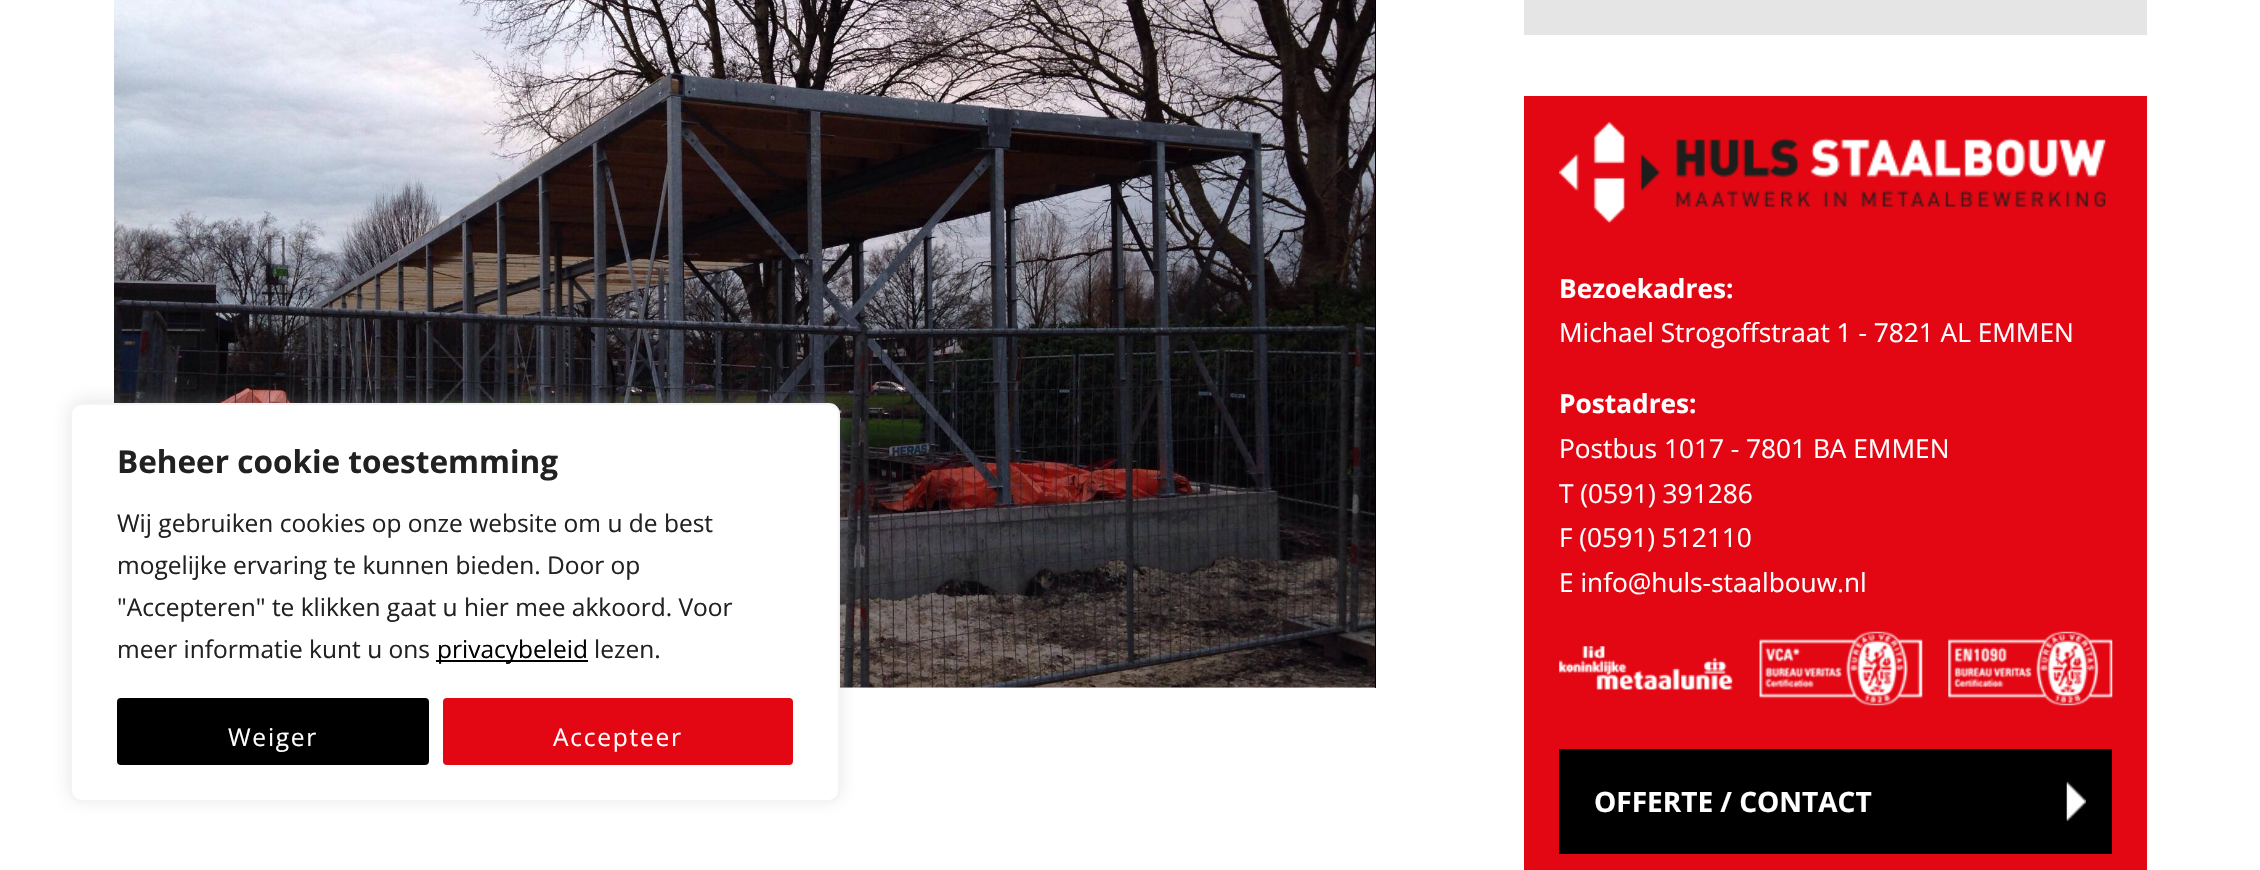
#include "include/core/SkBlurTypes.h"
#include "include/core/SkCanvas.h"
#include "include/core/SkData.h"
#include "include/core/SkFont.h"
#include "include/core/SkFontMgr.h"
#include "include/core/SkImage.h"
#include "include/core/SkMaskFilter.h"
#include "include/core/SkPaint.h"
#include "include/core/SkPathBuilder.h"
#include "include/core/SkTextBlob.h"
#include "include/effects/SkDashPathEffect.h"
#include "include/effects/SkGradientShader.h"
#include "include/utils/SkParsePath.h"

extern sk_sp<SkFontMgr> fontMgr;

void draw(SkCanvas* canvas) {
  SkPaint p;
  p.setAntiAlias(true);
  auto spacedText = [&](const char* s, float x, float y, const SkFont& font, const SkPaint& ink, float letter, float word) {
    std::vector<SkGlyphID> glyphs(font.countText(s, strlen(s), SkTextEncoding::kUTF8));
    std::vector<float> xs(glyphs.size());
    font.textToGlyphs(s, strlen(s), SkTextEncoding::kUTF8, glyphs);
    font.getXPos(glyphs, xs, x);
    float extra = 0;
    for (size_t i = 0; i < glyphs.size(); i++) {
      xs[i] += extra;
      extra += letter + word * (glyphs[i] == font.unicharToGlyph(' '));
    }
    canvas->drawTextBlob(SkTextBlob::MakeFromPosHGlyphs(glyphs, xs, y, font), 0, 0, ink);
  };
  canvas->clear(SK_ColorWHITE);
  canvas->drawImageRect(SkImages::DeferredFromEncodedData(SkData::MakeFromFileName("images/1.png")), SkRect::MakeLTRB(114, 0, 1375, 688), SkSamplingOptions());
  canvas->save();
  canvas->clipRect(SkRect::MakeLTRB(114, 0, 1376, 688));
  p.setStyle(SkPaint::kStroke_Style);
  p.setStrokeWidth(2);
  p.setColor(SK_ColorBLACK);
  canvas->drawRect(SkRect::MakeLTRB(113, -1, 1376, 823), p);
  canvas->restore();
  p.setStyle(SkPaint::kFill_Style);
  p.setColor(SkColorSetARGB(77, 172, 171, 171));
  p.setMaskFilter(SkMaskFilter::MakeBlur(kNormal_SkBlurStyle, 9));
  canvas->drawRoundRect(SkRect::MakeLTRB(70, 401, 840, 800), 11, 11, p);
  p.setMaskFilter(nullptr);
  p.setColor(SK_ColorWHITE);
  canvas->drawRoundRect(SkRect::MakeLTRB(71, 404, 839, 801), 10, 10, p);
  p.setStyle(SkPaint::kStroke_Style);
  p.setColor(SkColorSetRGB(244, 244, 244));
  canvas->drawRoundRect(SkRect::MakeLTRB(71, 404, 839, 801), 10, 10, p);
  p.setStyle(SkPaint::kFill_Style);
  p.setColor(SK_ColorBLACK);
  canvas->drawRect(SkRect::MakeLTRB(436, 660, 588, 662), p);
  canvas->drawRoundRect(SkRect::MakeLTRB(119, 700, 427, 763), 2, 2, p);
  p.setStyle(SkPaint::kStroke_Style);
  p.setStrokeWidth(4);
  canvas->drawRoundRect(SkRect::MakeLTRB(119, 700, 427, 763), 2, 2, p);
  p.setStyle(SkPaint::kFill_Style);
  p.setColor(SkColorSetRGB(227, 6, 19));
  canvas->drawRoundRect(SkRect::MakeLTRB(445, 700, 791, 763), 2, 2, p);
  p.setStyle(SkPaint::kStroke_Style);
  canvas->drawRoundRect(SkRect::MakeLTRB(445, 700, 791, 763), 2, 2, p);
  p.setStyle(SkPaint::kFill_Style);
  p.setColor(SkColorSetRGB(229, 229, 229));
  canvas->drawRect(SkRect::MakeLTRB(1524, 0, 2147, 35), p);
  p.setColor(SkColorSetRGB(227, 6, 19));
  canvas->drawRect(SkRect::MakeLTRB(1524, 96, 2147, 870), p);
  canvas->drawImageRect(SkImages::DeferredFromEncodedData(SkData::MakeFromFileName("images/2.png")), SkRect::MakeLTRB(1559, 122, 2106, 223), SkSamplingOptions());
  canvas->drawImageRect(SkImages::DeferredFromEncodedData(SkData::MakeFromFileName("images/3.png")), SkRect::MakeLTRB(1559, 631, 2113, 706), SkSamplingOptions());
  p.setColor(SK_ColorBLACK);
  canvas->drawRect(SkRect::MakeLTRB(1559, 749, 2112, 854), p);
  canvas->drawImageRect(SkImages::DeferredFromEncodedData(SkData::MakeFromFileName("images/4.png")), SkRect::MakeLTRB(2066, 782, 2086, 821), SkSamplingOptions());
  SkFont font1(fontMgr->matchFamilyStyle("Open Sans", SkFontStyle::Bold()), 31.5f);
  font1.setSubpixel(true);
  p.setColor(SkColorSetRGB(33, 33, 33));
  canvas->drawString("Beheer cookie toestemming", 117, 473, font1, p);
  SkFont font2(fontMgr->matchFamilyStyle("Open Sans", SkFontStyle::Normal()), 24.5f);
  font2.setSubpixel(true);
  canvas->drawString("Wij gebruiken cookies op onze website om u de best", 117, 532, font2, p);
  canvas->drawString("mogelijke ervaring te kunnen bieden. Door op", 117, 574, font2, p);
  canvas->drawString("\"Accepteren\" te klikken gaat u hier mee akkoord. Voor", 117, 616, font2, p);
  canvas->drawString("meer informatie kunt u ons", 117, 658, font2, p);
  p.setColor(SK_ColorBLACK);
  canvas->drawString("privacybeleid", 437, 658, font2, p);
  p.setColor(SkColorSetRGB(33, 33, 33));
  canvas->drawString("lezen.", 594, 658, font2, p);
  p.setColor(SK_ColorWHITE);
  spacedText("Weiger", 228, 746, font2, p, 1.75f, 0);
  spacedText("Accepteer", 553, 746, font2, p, 1.75f, 0);
  SkFont font3(fontMgr->matchFamilyStyle("Open Sans", SkFontStyle::Bold()), 26.25f);
  font3.setSubpixel(true);
  canvas->drawString("Bezoekadres:", 1559, 298, font3, p);
  SkFont font4(fontMgr->matchFamilyStyle("Open Sans", SkFontStyle::Normal()), 26.25f);
  font4.setSubpixel(true);
  canvas->drawString("Michael Strogoffstraat 1 - 7821 AL EMMEN", 1559, 342, font4, p);
  canvas->drawString("Postadres:", 1559, 413, font3, p);
  canvas->drawString("Postbus 1017 - 7801 BA EMMEN", 1559, 458, font4, p);
  canvas->drawString("T (0591) 391286", 1559, 503, font4, p);
  canvas->drawString("F (0591) 512110", 1559, 547, font4, p);
  canvas->drawString("E info@huls-staalbouw.nl", 1559, 592, font4, p);
  SkFont font5(fontMgr->matchFamilyStyle("Open Sans", SkFontStyle::Bold()), 28);
  font5.setSubpixel(true);
  canvas->drawString("OFFERTE / CONTACT", 1594, 812, font5, p);
}
